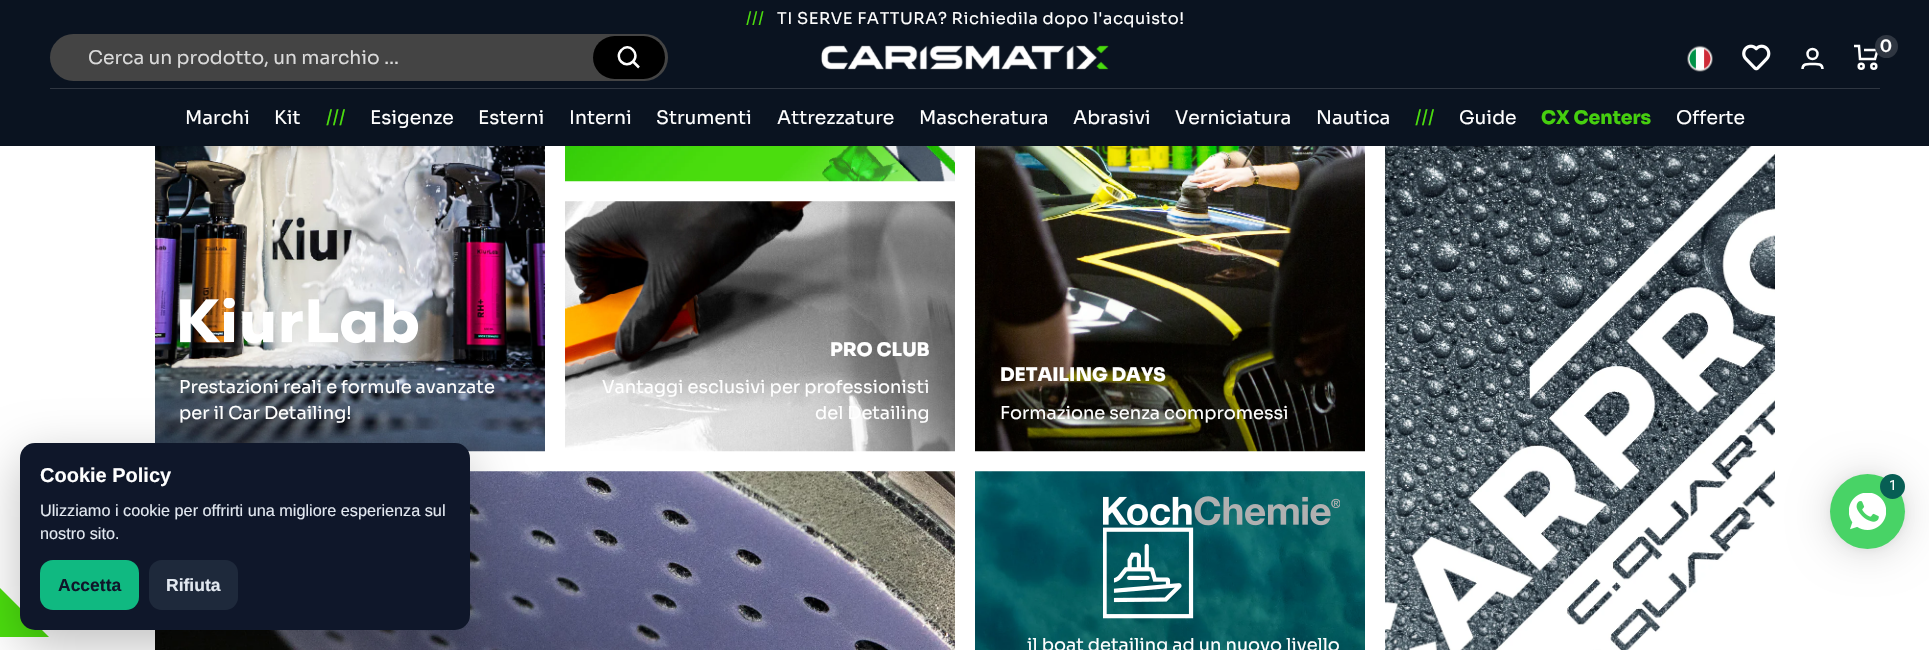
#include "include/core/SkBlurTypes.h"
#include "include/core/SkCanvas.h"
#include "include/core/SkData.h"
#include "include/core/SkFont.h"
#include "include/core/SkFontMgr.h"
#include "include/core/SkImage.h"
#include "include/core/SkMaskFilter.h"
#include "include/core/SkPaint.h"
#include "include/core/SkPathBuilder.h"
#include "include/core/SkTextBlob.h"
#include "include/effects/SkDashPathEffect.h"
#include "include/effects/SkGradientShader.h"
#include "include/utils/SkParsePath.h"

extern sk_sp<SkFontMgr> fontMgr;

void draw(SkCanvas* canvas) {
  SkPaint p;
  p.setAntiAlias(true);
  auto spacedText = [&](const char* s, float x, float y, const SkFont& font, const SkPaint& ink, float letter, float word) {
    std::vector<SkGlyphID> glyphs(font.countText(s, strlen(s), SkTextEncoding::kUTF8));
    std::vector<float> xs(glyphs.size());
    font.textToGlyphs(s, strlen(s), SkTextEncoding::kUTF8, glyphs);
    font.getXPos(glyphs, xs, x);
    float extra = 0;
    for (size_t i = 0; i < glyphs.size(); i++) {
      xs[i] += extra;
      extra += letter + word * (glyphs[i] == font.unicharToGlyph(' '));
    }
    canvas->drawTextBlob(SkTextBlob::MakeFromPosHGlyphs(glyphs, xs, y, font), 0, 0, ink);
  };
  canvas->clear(SK_ColorWHITE);
  p.setColor(SkColorSetRGB(10, 19, 32));
  canvas->drawRect(SkRect::MakeLTRB(0, 0, 1929, 146), p);
  p.setColor(SkColorSetRGB(68, 68, 68));
  canvas->drawRoundRect(SkRect::MakeLTRB(50, 34, 668, 81), 23.5f, 23.5f, p);
  p.setColor(SK_ColorBLACK);
  canvas->drawRoundRect(SkRect::MakeLTRB(593, 36, 665, 79), 21.5f, 21.5f, p);
  p.setStyle(SkPaint::kStroke_Style);
  p.setStrokeWidth(2.5f);
  p.setColor(SK_ColorWHITE);
  canvas->drawPath(SkPathBuilder().moveTo(633, 61.5f).cubicTo(640.5f, 54, 629, 42, 621.5f, 50).cubicTo(613.5f, 58, 625, 69.5f, 633, 61.5f).close().moveTo(633, 61.5f).lineTo(639, 67.5f).detach(), p);
  canvas->drawImageRect(SkImages::DeferredFromEncodedData(SkData::MakeFromFileName("images/1.png")), SkRect::MakeLTRB(821, 45, 1109, 70), SkSamplingOptions());
  canvas->drawImageRect(SkImages::DeferredFromEncodedData(SkData::MakeFromFileName("images/2.png")), SkRect::MakeLTRB(1687, 45, 1713, 72), SkSamplingOptions());
  canvas->drawImageRect(SkImages::DeferredFromEncodedData(SkData::MakeFromFileName("images/3.png")), SkRect::MakeLTRB(1742, 44, 1771, 71), SkSamplingOptions());
  canvas->drawCircle(1812.5f, 54, 5, p);
  canvas->drawPath(SkPathBuilder().moveTo(1802.5f, 69).cubicTo(1802.5f, 63, 1808.5f, 64, 1812.5f, 64).cubicTo(1816.5f, 64, 1822.5f, 63, 1822.5f, 69).detach(), p);
  canvas->drawPath(SkPathBuilder().moveTo(1854, 46).lineTo(1859, 46).lineTo(1860, 59).lineTo(1875, 59).lineTo(1877.5f, 50).lineTo(1864, 50).detach(), p);
  canvas->drawCircle(1861.2f, 66.2f, 2.5f, p);
  canvas->drawCircle(1873.8f, 66.2f, 2.5f, p);
  p.setStyle(SkPaint::kFill_Style);
  p.setColor(SkColorSetRGB(47, 54, 65));
  canvas->drawCircle(1886.5f, 46.5f, 11.5f, p);
  canvas->drawRect(SkRect::MakeLTRB(50, 88, 1880, 89), p);
  canvas->drawImageRect(SkImages::DeferredFromEncodedData(SkData::MakeFromFileName("images/4.png")), SkRect::MakeLTRB(565, 146, 955, 182), SkSamplingOptions());
  canvas->drawImageRect(SkImages::DeferredFromEncodedData(SkData::MakeFromFileName("images/5.png")), SkRect::MakeLTRB(1385, 146, 1775, 650), SkSamplingOptions());
  canvas->drawImageRect(SkImages::DeferredFromEncodedData(SkData::MakeFromFileName("images/6.png")), SkRect::MakeLTRB(155, 146, 545, 452), SkSamplingOptions());
  canvas->drawImageRect(SkImages::DeferredFromEncodedData(SkData::MakeFromFileName("images/7.png")), SkRect::MakeLTRB(180, 298, 418, 344), SkSamplingOptions());
  canvas->drawImageRect(SkImages::DeferredFromEncodedData(SkData::MakeFromFileName("images/8.png")), SkRect::MakeLTRB(565, 201, 955, 452), SkSamplingOptions());
  canvas->drawImageRect(SkImages::DeferredFromEncodedData(SkData::MakeFromFileName("images/9.png")), SkRect::MakeLTRB(975, 146, 1365, 452), SkSamplingOptions());
  canvas->drawImageRect(SkImages::DeferredFromEncodedData(SkData::MakeFromFileName("images/10.png")), SkRect::MakeLTRB(155, 471, 955, 650), SkSamplingOptions());
  canvas->drawImageRect(SkImages::DeferredFromEncodedData(SkData::MakeFromFileName("images/11.png")), SkRect::MakeLTRB(975, 471, 1365, 650), SkSamplingOptions());
  canvas->drawImageRect(SkImages::DeferredFromEncodedData(SkData::MakeFromFileName("images/12.png")), SkRect::MakeLTRB(1103, 496, 1340, 619), SkSamplingOptions());
  p.setColor(SkColorSetRGB(75, 221, 14));
  canvas->drawPath(SkPathBuilder().moveTo(-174, 581).lineTo(-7, 581).lineTo(49, 637).lineTo(-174, 637).close().detach(), p);
  p.setColor(SkColorSetARGB(64, 0, 0, 0));
  p.setMaskFilter(SkMaskFilter::MakeBlur(kNormal_SkBlurStyle, 25));
  canvas->drawRoundRect(SkRect::MakeLTRB(20, 458, 470, 645), 15, 15, p);
  p.setMaskFilter(nullptr);
  p.setColor(SkColorSetRGB(15, 23, 42));
  canvas->drawRoundRect(SkRect::MakeLTRB(20, 443, 470, 630), 15, 15, p);
  p.setColor(SkColorSetRGB(16, 185, 129));
  canvas->drawRoundRect(SkRect::MakeLTRB(40, 560, 139, 610), 13, 13, p);
  p.setColor(SkColorSetRGB(30, 41, 59));
  canvas->drawRoundRect(SkRect::MakeLTRB(149, 560, 238, 610), 13, 13, p);
  p.setColor(SkColorSetARGB(41, 0, 0, 0));
  p.setMaskFilter(SkMaskFilter::MakeBlur(kNormal_SkBlurStyle, 20));
  canvas->drawRoundRect(SkRect::MakeLTRB(1830, 476, 1905, 551), 37.5f, 37.5f, p);
  p.setMaskFilter(nullptr);
  p.setColor(SkColorSetARGB(15, 0, 0, 0));
  p.setMaskFilter(SkMaskFilter::MakeBlur(kNormal_SkBlurStyle, 4));
  canvas->drawRoundRect(SkRect::MakeLTRB(1830, 475, 1905, 550), 37.5f, 37.5f, p);
  p.setMaskFilter(nullptr);
  p.setColor(SkColorSetRGB(72, 211, 102));
  canvas->drawCircle(1867.5f, 511.5f, 37.5f, p);
  canvas->drawImageRect(SkImages::DeferredFromEncodedData(SkData::MakeFromFileName("images/13.png")), SkRect::MakeLTRB(1849, 493, 1886, 530), SkSamplingOptions());
  p.setColor(SkColorSetRGB(7, 94, 84));
  canvas->drawCircle(1892.5f, 486.5f, 12.5f, p);
  SkFont font1(fontMgr->matchFamilyStyle("Sora", SkFontStyle::Normal()), 16.25f);
  font1.setSubpixel(true);
  p.setColor(SkColorSetRGB(75, 221, 14));
  spacedText("///", 746, 24, font1, p, 0.5f, 0);
  p.setColor(SK_ColorWHITE);
  spacedText("TI SERVE FATTURA? Richiedila dopo l'acquisto!", 777, 24, font1, p, 0.5f, 0);
  SkFont font2(fontMgr->matchFamilyStyle("Sora", SkFontStyle::Normal()), 18.75f);
  font2.setSubpixel(true);
  p.setColor(SkColorSetRGB(218, 218, 218));
  canvas->drawString("Cerca un prodotto, un marchio …", 88, 64, font2, p);
  SkFont font3(fontMgr->matchFamilyStyle("Instrument Sans", SkFontStyle(600, SkFontStyle::kNormal_Width, SkFontStyle::kUpright_Slant)), 17.5f);
  font3.setSubpixel(true);
  p.setColor(SK_ColorWHITE);
  canvas->drawString("0", 1880, 52, font3, p);
  canvas->drawString("Marchi", 185, 124, font2, p);
  canvas->drawString("Kit", 274, 124, font2, p);
  p.setColor(SkColorSetRGB(75, 221, 14));
  canvas->drawString("///", 326, 124, font2, p);
  p.setColor(SK_ColorWHITE);
  canvas->drawString("Esigenze", 370, 124, font2, p);
  canvas->drawString("Esterni", 478, 124, font2, p);
  canvas->drawString("Interni", 569, 124, font2, p);
  canvas->drawString("Strumenti", 656, 124, font2, p);
  canvas->drawString("Attrezzature", 777, 124, font2, p);
  canvas->drawString("Mascheratura", 919, 124, font2, p);
  canvas->drawString("Abrasivi", 1073, 124, font2, p);
  canvas->drawString("Verniciatura", 1175, 124, font2, p);
  canvas->drawString("Nautica", 1316, 124, font2, p);
  p.setColor(SkColorSetRGB(75, 221, 14));
  canvas->drawString("///", 1415, 124, font2, p);
  p.setColor(SK_ColorWHITE);
  canvas->drawString("Guide", 1459, 124, font2, p);
  SkFont font4(fontMgr->matchFamilyStyle("Sora", SkFontStyle(800, SkFontStyle::kNormal_Width, SkFontStyle::kUpright_Slant)), 18.75f);
  font4.setSubpixel(true);
  p.setColor(SkColorSetRGB(70, 207, 15));
  canvas->drawString("CX Centers", 1541, 124, font4, p);
  p.setColor(SK_ColorWHITE);
  canvas->drawString("Offerte", 1676, 124, font2, p);
  SkFont font5(fontMgr->matchFamilyStyle("Sora", SkFontStyle::Normal()), 17.8f);
  font5.setSubpixel(true);
  canvas->drawString("Prestazioni reali e formule avanzate", 179, 393, font5, p);
  canvas->drawString("per il Car Detailing!", 179, 419, font5, p);
  canvas->drawString("PRO CLUB", 830, 356, font4, p);
  canvas->drawString("Vantaggi esclusivi per professionisti", 602, 393, font5, p);
  canvas->drawString("del Detailing", 815, 419, font5, p);
  canvas->drawString("DETAILING DAYS", 1000, 381, font4, p);
  canvas->drawString("Formazione senza compromessi", 1000, 419, font5, p);
  canvas->drawString("il boat detailing ad un nuovo livello", 1027, 651, font5, p);
  SkFont font6(fontMgr->matchFamilyStyle("Liberation Sans", SkFontStyle::Bold()), 20);
  font6.setSubpixel(true);
  canvas->drawString("Cookie Policy", 40, 482, font6, p);
  SkFont font7(fontMgr->matchFamilyStyle("Liberation Sans", SkFontStyle::Normal()), 16.25f);
  font7.setSubpixel(true);
  p.setColor(SkColorSetRGB(226, 232, 240));
  canvas->drawString("Ulizziamo i cookie per offrirti una migliore esperienza sul", 40, 516, font7, p);
  canvas->drawString("nostro sito.", 40, 539, font7, p);
  SkFont font8(fontMgr->matchFamilyStyle("Liberation Sans", SkFontStyle::Bold()), 17.5f);
  font8.setSubpixel(true);
  p.setColor(SkColorSetRGB(15, 23, 42));
  canvas->drawString("Accetta", 58, 591, font8, p);
  p.setColor(SkColorSetRGB(226, 232, 240));
  canvas->drawString("Rifiuta", 166, 591, font8, p);
  SkFont font9(fontMgr->matchFamilyStyle("Roboto", SkFontStyle::Normal()), 14);
  font9.setSubpixel(true);
  p.setColor(SK_ColorWHITE);
  canvas->drawString("1", 1889, 490, font9, p);
}
